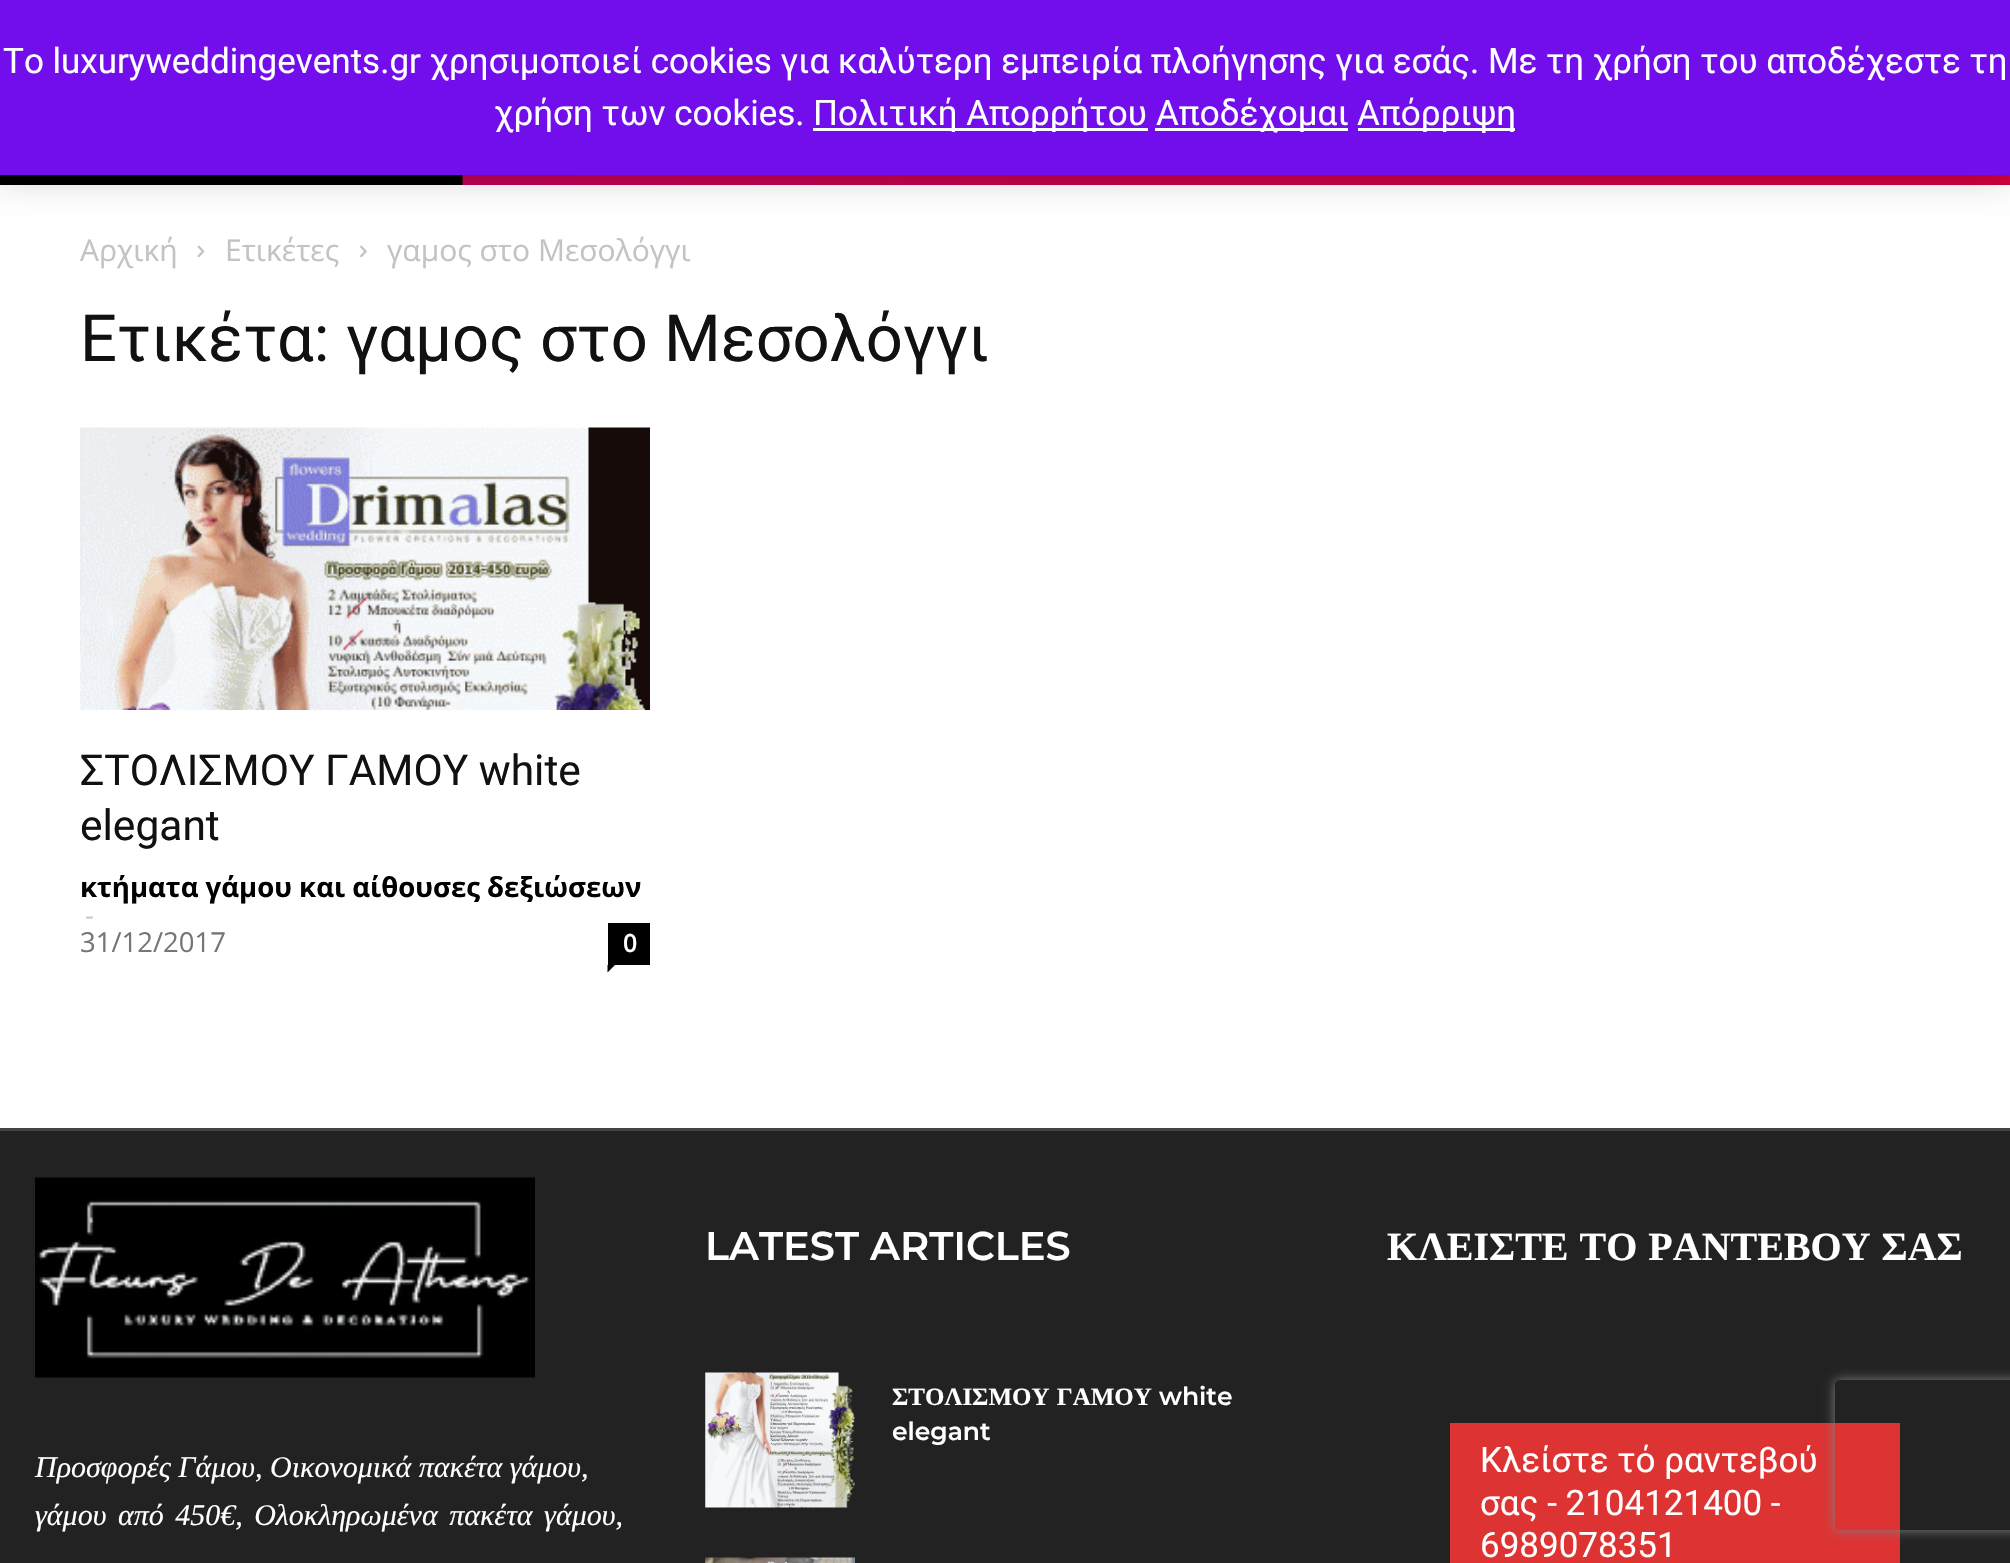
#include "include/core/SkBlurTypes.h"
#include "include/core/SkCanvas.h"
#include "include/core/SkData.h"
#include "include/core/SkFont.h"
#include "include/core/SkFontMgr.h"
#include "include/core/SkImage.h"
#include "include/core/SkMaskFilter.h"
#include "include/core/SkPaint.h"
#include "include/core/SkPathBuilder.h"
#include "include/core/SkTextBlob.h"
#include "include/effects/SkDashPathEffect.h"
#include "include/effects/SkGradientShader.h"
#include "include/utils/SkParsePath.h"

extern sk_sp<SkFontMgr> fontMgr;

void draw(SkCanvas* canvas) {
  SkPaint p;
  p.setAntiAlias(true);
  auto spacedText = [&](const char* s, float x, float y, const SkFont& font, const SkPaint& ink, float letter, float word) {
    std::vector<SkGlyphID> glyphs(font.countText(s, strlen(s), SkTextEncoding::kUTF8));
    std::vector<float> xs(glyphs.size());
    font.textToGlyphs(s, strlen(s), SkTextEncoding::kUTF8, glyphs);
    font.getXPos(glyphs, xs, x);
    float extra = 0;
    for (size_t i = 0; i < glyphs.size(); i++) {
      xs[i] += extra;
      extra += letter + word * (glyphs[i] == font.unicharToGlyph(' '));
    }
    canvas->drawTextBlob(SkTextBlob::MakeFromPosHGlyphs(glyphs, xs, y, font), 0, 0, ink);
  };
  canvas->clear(SK_ColorWHITE);
  {
    const SkColor colors[] = {SkColorSetRGB(185, 3, 91), SkColorSetRGB(211, 0, 63)};
    const float stops[] = {0, 1};
    const SkPoint ends[] = {{0, 93}, {2010, 92}};
    p.setShader(SkGradientShader::MakeLinear(ends, colors, stops, 2, SkTileMode::kClamp));
    p.setAlpha(255);
  }
  canvas->drawRect(SkRect::MakeLTRB(462, 175, 2010, 185), p);
  canvas->drawImageRect(SkImages::DeferredFromEncodedData(SkData::MakeFromFileName("images/1.png")), SkRect::MakeLTRB(0, 175, 463, 185), SkSamplingOptions());
  p.setShader(nullptr);
  p.setColor(SkColorSetARGB(51, 0, 0, 0));
  p.setMaskFilter(SkMaskFilter::MakeBlur(kNormal_SkBlurStyle, 17.5f));
  canvas->drawRect(SkRect::MakeLTRB(0, 3, 2010, 178), p);
  p.setMaskFilter(nullptr);
  p.setColor(SkColorSetRGB(114, 14, 236));
  canvas->drawRect(SkRect::MakeLTRB(0, 0, 2010, 175), p);
  p.setColor(SkColorSetRGB(252, 251, 254));
  canvas->drawRect(SkRect::MakeLTRB(813, 128, 1148, 131), p);
  canvas->drawRect(SkRect::MakeLTRB(1155, 128, 1348, 131), p);
  canvas->drawRect(SkRect::MakeLTRB(1358, 128, 1515, 131), p);
  canvas->drawImageRect(SkImages::DeferredFromEncodedData(SkData::MakeFromFileName("images/2.png")), SkRect::MakeLTRB(197, 245, 205, 258), SkSamplingOptions());
  canvas->drawImageRect(SkImages::DeferredFromEncodedData(SkData::MakeFromFileName("images/3.png")), SkRect::MakeLTRB(360, 245, 367, 258), SkSamplingOptions());
  canvas->drawImageRect(SkImages::DeferredFromEncodedData(SkData::MakeFromFileName("images/4.png")), SkRect::MakeLTRB(80, 427, 650, 710), SkSamplingOptions());
  p.setColor(SK_ColorBLACK);
  canvas->drawRect(SkRect::MakeLTRB(608, 923, 650, 965), p);
  canvas->drawPath(SkPathBuilder().moveTo(607.5f, 965).lineTo(615, 965).lineTo(607.5f, 972.5f).close().detach(), p);
  p.setColor(SkColorSetRGB(34, 34, 34));
  canvas->drawRect(SkRect::MakeLTRB(0, 1131, 2010, 1563), p);
  p.setColor(SkColorSetRGB(68, 68, 68));
  canvas->drawRect(SkRect::MakeLTRB(0, 1128, 2010, 1131), p);
  canvas->drawImageRect(SkImages::DeferredFromEncodedData(SkData::MakeFromFileName("images/5.png")), SkRect::MakeLTRB(35, 1177, 535, 1378), SkSamplingOptions());
  canvas->drawImageRect(SkImages::DeferredFromEncodedData(SkData::MakeFromFileName("images/6.png")), SkRect::MakeLTRB(705, 1372, 855, 1508), SkSamplingOptions());
  canvas->drawImageRect(SkImages::DeferredFromEncodedData(SkData::MakeFromFileName("images/7.png")), SkRect::MakeLTRB(705, 1557, 855, 1563), SkSamplingOptions());
  p.setColor(SkColorSetRGB(221, 51, 51));
  canvas->drawRect(SkRect::MakeLTRB(1450, 1423, 1900, 1563), p);
  canvas->save();
  canvas->clipPath(SkPathBuilder(SkPathFillType::kEvenOdd).moveTo(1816, 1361).lineTo(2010, 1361).lineTo(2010, 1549).lineTo(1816, 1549).close().moveTo(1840, 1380).lineTo(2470, 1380).cubicTo(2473, 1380, 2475, 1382, 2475, 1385).lineTo(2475, 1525).cubicTo(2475, 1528, 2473, 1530, 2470, 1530).lineTo(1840, 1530).cubicTo(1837, 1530, 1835, 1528, 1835, 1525).lineTo(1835, 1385).cubicTo(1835, 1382, 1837, 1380, 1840, 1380).close().detach(), true);
  p.setColor(SkColorSetRGB(128, 128, 128));
  p.setMaskFilter(SkMaskFilter::MakeBlur(kNormal_SkBlurStyle, 6));
  canvas->drawRoundRect(SkRect::MakeLTRB(1835, 1380, 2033, 1530), 5, 5, p);
  p.setMaskFilter(nullptr);
  canvas->restore();
  SkFont font1(fontMgr->matchFamilyStyle("Roboto", SkFontStyle::Normal()), 35);
  font1.setSubpixel(true);
  p.setColor(SK_ColorWHITE);
  canvas->drawString("Το luxuryweddingevents.gr χρησιμοποιεί cookies για καλύτερη εμπειρία πλοήγησης για εσάς. Με τη χρήση του αποδέχεστε τη", 3, 73, font1, p);
  canvas->drawString("χρήση των cookies.", 494, 125, font1, p);
  canvas->drawString("Πολιτική Απορρήτου", 813, 125, font1, p);
  canvas->drawString("Αποδέχομαι", 1156, 125, font1, p);
  canvas->drawString("Απόρριψη", 1357, 125, font1, p);
  SkFont font2(fontMgr->matchFamilyStyle("Open Sans", SkFontStyle::Normal()), 30);
  font2.setSubpixel(true);
  p.setColor(SkColorSetRGB(195, 195, 195));
  canvas->drawString("Αρχική", 80, 261, font2, p);
  canvas->drawString("Ετικέτες", 225, 261, font2, p);
  canvas->drawString("γαμος στο Μεσολόγγι", 387, 261, font2, p);
  SkFont font3(fontMgr->matchFamilyStyle("Roboto", SkFontStyle::Normal()), 65);
  font3.setSubpixel(true);
  p.setColor(SkColorSetRGB(17, 17, 17));
  canvas->drawString("Ετικέτα: γαμος στο Μεσολόγγι", 80, 361, font3, p);
  SkFont font4(fontMgr->matchFamilyStyle("Roboto", SkFontStyle::Normal()), 42.5f);
  font4.setSubpixel(true);
  canvas->drawString("ΣΤΟΛΙΣΜΟΥ ΓΑΜΟΥ white", 80, 785, font4, p);
  canvas->drawString("elegant", 80, 840, font4, p);
  SkFont font5(fontMgr->matchFamilyStyle("Open Sans", SkFontStyle::Bold()), 27.5f);
  font5.setSubpixel(true);
  p.setColor(SK_ColorBLACK);
  canvas->drawString("κτήματα γάμου και αίθουσες δεξιώσεων", 80, 897, font5, p);
  SkFont font6(fontMgr->matchFamilyStyle("Open Sans", SkFontStyle::Normal()), 27.5f);
  font6.setSubpixel(true);
  p.setColor(SkColorSetRGB(204, 204, 204));
  canvas->drawString("-", 85, 925, font6, p);
  p.setColor(SkColorSetRGB(118, 118, 118));
  canvas->drawString("31/12/2017", 80, 952, font6, p);
  SkFont font7(fontMgr->matchFamilyStyle("Open Sans", SkFontStyle(600, SkFontStyle::kNormal_Width, SkFontStyle::kUpright_Slant)), 25);
  font7.setSubpixel(true);
  p.setColor(SK_ColorWHITE);
  canvas->drawString("0", 623, 952, font7, p);
  SkFont font8(fontMgr->matchFamilyStyle("Liberation Serif", SkFontStyle::Italic()), 30);
  font8.setSubpixel(true);
  canvas->drawString("Προσφορές Γάμου, Οικονομικά πακέτα γάμου,", 35, 1477, font8, p);
  spacedText("γάμου από 450€, Ολοκληρωμένα πακέτα γάμου,", 35, 1525, font8, p, 0, 4);
  SkFont font9(fontMgr->matchFamilyStyle("Montserrat", SkFontStyle(600, SkFontStyle::kNormal_Width, SkFontStyle::kUpright_Slant)), 40);
  font9.setSubpixel(true);
  canvas->drawString("LATEST ARTICLES", 705, 1260, font9, p);
  SkFont font10(fontMgr->matchFamilyStyle("Liberation Serif", SkFontStyle::Bold()), 25);
  font10.setSubpixel(true);
  spacedText("ΣΤΟΛΙΣΜΟΥ ΓΑΜΟΥ", 892, 1405, font10, p, 0, 1);
  SkFont font11(fontMgr->matchFamilyStyle("Montserrat", SkFontStyle(600, SkFontStyle::kNormal_Width, SkFontStyle::kUpright_Slant)), 25);
  font11.setSubpixel(true);
  canvas->drawString("white", 1159, 1405, font11, p);
  canvas->drawString("elegant", 892, 1440, font11, p);
  SkFont font12(fontMgr->matchFamilyStyle("Liberation Serif", SkFontStyle::Bold()), 40);
  font12.setSubpixel(true);
  spacedText("ΚΛΕΙΣΤΕ ΤΟ ΡΑΝΤΕΒΟΥ ΣΑΣ", 1387, 1260, font12, p, 0, 1);
  canvas->drawString("Κλείστε τό ραντεβού", 1480, 1472, font1, p);
  canvas->drawString("σας - 2104121400 -", 1480, 1515, font1, p);
  canvas->drawString("6989078351", 1480, 1557, font1, p);
}
